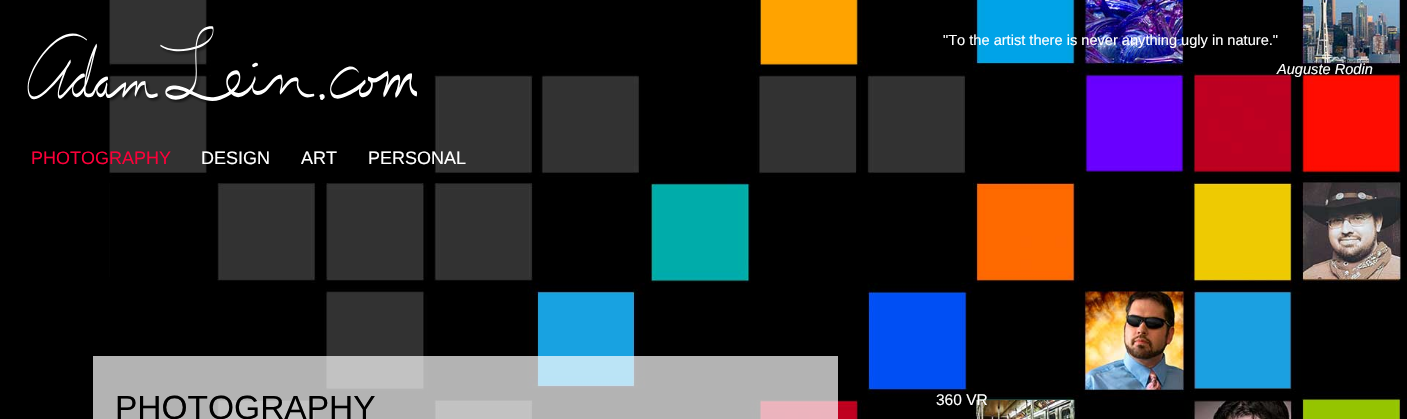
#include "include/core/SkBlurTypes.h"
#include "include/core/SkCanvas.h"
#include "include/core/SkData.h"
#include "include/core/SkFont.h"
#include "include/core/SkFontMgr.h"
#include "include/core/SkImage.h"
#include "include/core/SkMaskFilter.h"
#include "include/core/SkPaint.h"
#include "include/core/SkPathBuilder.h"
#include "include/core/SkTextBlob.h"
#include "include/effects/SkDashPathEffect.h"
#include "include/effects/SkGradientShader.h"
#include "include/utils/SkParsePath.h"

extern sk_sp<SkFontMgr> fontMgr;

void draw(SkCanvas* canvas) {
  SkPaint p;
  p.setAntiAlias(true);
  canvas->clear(SK_ColorBLACK);
  canvas->drawImageRect(SkImages::DeferredFromEncodedData(SkData::MakeFromFileName("images/1.png")), SkRect::MakeLTRB(109, 0, 1407, 419), SkSamplingOptions());
  canvas->drawImageRect(SkImages::DeferredFromEncodedData(SkData::MakeFromFileName("images/2.png")), SkRect::MakeLTRB(27, 26, 418, 103), SkSamplingOptions());
  p.setColor(SkColorSetARGB(179, 255, 255, 255));
  canvas->drawRect(SkRect::MakeLTRB(93, 356, 838, 419), p);
  SkFont font1(fontMgr->matchFamilyStyle("Liberation Sans", SkFontStyle::Normal()), 14.6f);
  font1.setSubpixel(true);
  p.setColor(SK_ColorWHITE);
  canvas->drawString("\"To the artist there is never anything ugly in nature.\"", 943, 45, font1, p);
  SkFont font2(fontMgr->matchFamilyStyle("Liberation Sans", SkFontStyle::Italic()), 14.6f);
  font2.setSubpixel(true);
  canvas->drawString("Auguste Rodin", 1277, 74, font2, p);
  SkFont font3(fontMgr->matchFamilyStyle("Liberation Sans", SkFontStyle::Normal()), 18);
  font3.setSubpixel(true);
  p.setColor(SkColorSetRGB(251, 0, 57));
  canvas->drawString("PHOTOGRAPHY", 31, 164, font3, p);
  p.setColor(SK_ColorWHITE);
  canvas->drawString("DESIGN", 201, 164, font3, p);
  canvas->drawString("ART", 301, 164, font3, p);
  canvas->drawString("PERSONAL", 368, 164, font3, p);
  SkFont font4(fontMgr->matchFamilyStyle("Liberation Sans", SkFontStyle::Normal()), 33.5f);
  font4.setSubpixel(true);
  p.setColor(SK_ColorBLACK);
  canvas->drawString("PHOTOGRAPHY", 115, 419, font4, p);
  SkFont font5(fontMgr->matchFamilyStyle("Liberation Sans", SkFontStyle::Normal()), 15.5f);
  font5.setSubpixel(true);
  p.setColor(SK_ColorWHITE);
  canvas->drawString("360 VR", 936, 405, font5, p);
}
